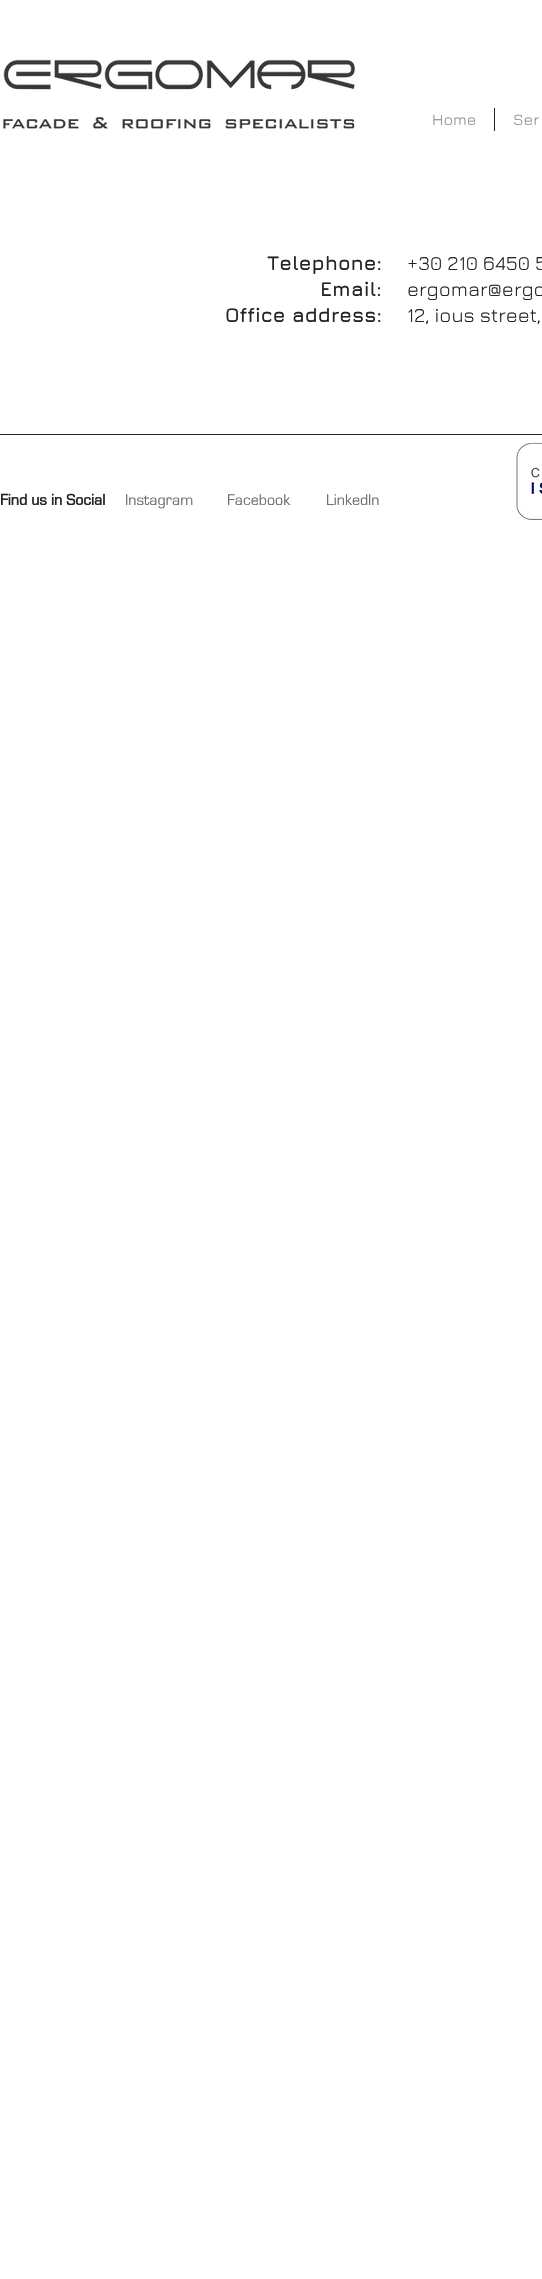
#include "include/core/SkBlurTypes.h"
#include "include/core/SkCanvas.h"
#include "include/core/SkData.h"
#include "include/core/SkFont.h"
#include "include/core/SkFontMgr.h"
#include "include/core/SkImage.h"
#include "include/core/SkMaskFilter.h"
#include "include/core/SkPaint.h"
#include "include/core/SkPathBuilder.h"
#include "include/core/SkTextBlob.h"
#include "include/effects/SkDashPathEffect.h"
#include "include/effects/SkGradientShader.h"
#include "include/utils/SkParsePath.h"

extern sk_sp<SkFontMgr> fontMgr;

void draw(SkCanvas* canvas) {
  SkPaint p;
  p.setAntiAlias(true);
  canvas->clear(SK_ColorWHITE);
  canvas->drawImageRect(SkImages::DeferredFromEncodedData(SkData::MakeFromFileName("images/1.png")), SkRect::MakeLTRB(2, 59, 355, 129), SkSamplingOptions());
  p.setColor(SkColorSetRGB(36, 36, 36));
  canvas->drawRect(SkRect::MakeLTRB(494, 108, 495, 131), p);
  canvas->drawRect(SkRect::MakeLTRB(0, 434, 542, 435), p);
  canvas->drawImageRect(SkImages::DeferredFromEncodedData(SkData::MakeFromFileName("images/2.png")), SkRect::MakeLTRB(516, 442, 542, 520), SkSamplingOptions());
  SkFont font1(fontMgr->matchFamilyStyle("Jura", SkFontStyle::Normal()), 16);
  font1.setSubpixel(true);
  p.setColor(SkColorSetRGB(139, 139, 139));
  canvas->drawString("Home", 432, 125, font1, p);
  canvas->drawString("Ser", 513, 125, font1, p);
  SkFont font2(fontMgr->matchFamilyStyle("Jura", SkFontStyle::Bold()), 20);
  font2.setSubpixel(true);
  p.setColor(SkColorSetRGB(36, 36, 36));
  canvas->drawString("Telephone:", 267, 270, font2, p);
  canvas->drawString("Email:", 320, 296, font2, p);
  canvas->drawString("Office address:", 225, 322, font2, p);
  SkFont font3(fontMgr->matchFamilyStyle("Jura", SkFontStyle::Normal()), 20);
  font3.setSubpixel(true);
  canvas->drawString("+30 210 6450 5", 407, 270, font3, p);
  canvas->drawString("ergomar@ergo", 407, 296, font3, p);
  canvas->drawString("12, ious street,", 407, 322, font3, p);
  SkFont font4(fontMgr->matchFamilyStyle("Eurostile", SkFontStyle::Bold()), 16);
  font4.setSubpixel(true);
  canvas->drawString("Find us in Social", 0, 505, font4, p);
  SkFont font5(fontMgr->matchFamilyStyle("Eurostile", SkFontStyle::Normal()), 16);
  font5.setSubpixel(true);
  p.setColor(SkColorSetRGB(112, 112, 112));
  canvas->drawString("Instagram", 125, 505, font5, p);
  canvas->drawString("Facebook", 227, 505, font5, p);
  canvas->drawString("LinkedIn", 326, 505, font5, p);
}
